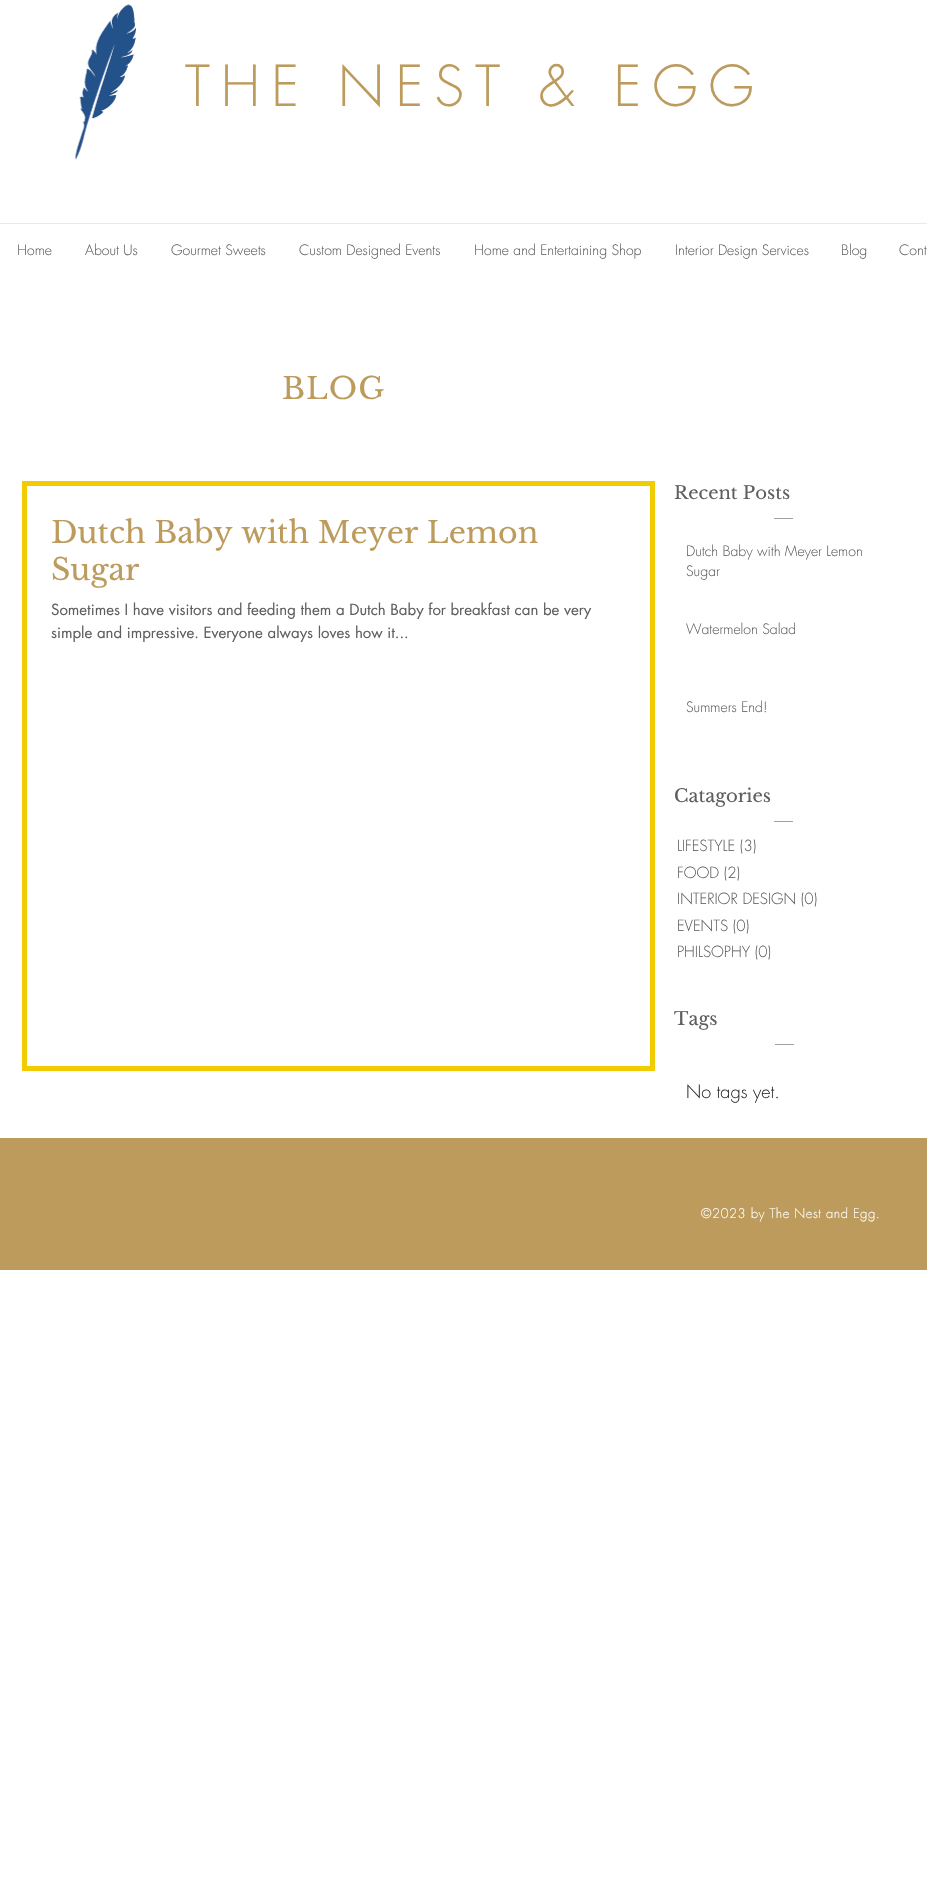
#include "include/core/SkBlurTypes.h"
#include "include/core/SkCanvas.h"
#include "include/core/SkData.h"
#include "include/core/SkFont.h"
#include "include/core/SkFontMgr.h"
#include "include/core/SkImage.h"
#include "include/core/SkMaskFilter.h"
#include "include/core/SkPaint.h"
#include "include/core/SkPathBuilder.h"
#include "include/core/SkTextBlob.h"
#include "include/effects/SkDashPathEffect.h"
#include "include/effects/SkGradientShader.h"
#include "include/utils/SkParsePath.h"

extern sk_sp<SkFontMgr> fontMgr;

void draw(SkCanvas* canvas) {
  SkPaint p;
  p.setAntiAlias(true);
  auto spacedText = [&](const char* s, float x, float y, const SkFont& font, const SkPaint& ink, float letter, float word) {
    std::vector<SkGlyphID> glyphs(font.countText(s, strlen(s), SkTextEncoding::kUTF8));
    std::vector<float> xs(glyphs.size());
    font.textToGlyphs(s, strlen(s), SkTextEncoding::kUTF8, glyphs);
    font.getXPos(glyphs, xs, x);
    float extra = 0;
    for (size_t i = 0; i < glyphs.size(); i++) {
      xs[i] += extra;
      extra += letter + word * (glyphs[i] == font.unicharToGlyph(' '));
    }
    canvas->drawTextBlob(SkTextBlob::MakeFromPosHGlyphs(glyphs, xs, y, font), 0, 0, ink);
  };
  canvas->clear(SK_ColorWHITE);
  canvas->drawImageRect(SkImages::DeferredFromEncodedData(SkData::MakeFromFileName("images/1.png")), SkRect::MakeLTRB(75, 4, 136, 160), SkSamplingOptions());
  p.setColor(SkColorSetRGB(233, 233, 233));
  canvas->drawRect(SkRect::MakeLTRB(0, 223, 927, 224), p);
  p.setStyle(SkPaint::kStroke_Style);
  p.setStrokeWidth(5);
  p.setColor(SkColorSetRGB(241, 204, 1));
  canvas->drawRect(SkRect::MakeLTRB(24.5f, 483.5f, 652.5f, 1068.5f), p);
  p.setStyle(SkPaint::kFill_Style);
  p.setColor(SkColorSetRGB(160, 160, 159));
  canvas->drawRect(SkRect::MakeLTRB(774, 518, 793, 519), p);
  canvas->drawRect(SkRect::MakeLTRB(774, 821, 793, 822), p);
  canvas->drawRect(SkRect::MakeLTRB(775, 1044, 794, 1045), p);
  p.setColor(SkColorSetRGB(188, 155, 93));
  canvas->drawRect(SkRect::MakeLTRB(0, 1138, 927, 1270), p);
  SkFont font1(fontMgr->matchFamilyStyle("futura", SkFontStyle(300, SkFontStyle::kNormal_Width, SkFontStyle::kUpright_Slant)), 55);
  font1.setSubpixel(true);
  spacedText("THE NEST & EGG", 185, 106, font1, p, 11, 0);
  SkFont font2(fontMgr->matchFamilyStyle("futura", SkFontStyle(300, SkFontStyle::kNormal_Width, SkFontStyle::kUpright_Slant)), 14);
  font2.setSubpixel(true);
  p.setColor(SkColorSetRGB(96, 94, 94));
  canvas->drawString("Home", 17, 255, font2, p);
  canvas->drawString("About Us", 85, 255, font2, p);
  canvas->drawString("Gourmet Sweets", 171, 255, font2, p);
  canvas->drawString("Custom Designed Events", 299, 255, font2, p);
  canvas->drawString("Home and Entertaining Shop", 474, 255, font2, p);
  canvas->drawString("Interior Design Services", 675, 255, font2, p);
  canvas->drawString("Blog", 841, 255, font2, p);
  canvas->drawString("Cont", 899, 255, font2, p);
  SkFont font3(fontMgr->matchFamilyStyle("Libre Baskerville", SkFontStyle::Normal()), 30);
  font3.setSubpixel(true);
  p.setColor(SkColorSetRGB(188, 155, 93));
  spacedText("BLOG", 282, 399, font3, p, 1, 0);
  SkFont font4(fontMgr->matchFamilyStyle("Libre Baskerville", SkFontStyle::Normal()), 18);
  font4.setSubpixel(true);
  p.setColor(SkColorSetRGB(96, 94, 94));
  canvas->drawString("Recent Posts", 674, 499, font4, p);
  p.setColor(SkColorSetRGB(188, 155, 93));
  canvas->drawString("Dutch Baby with Meyer Lemon", 51, 543, font3, p);
  canvas->drawString("Sugar", 51, 580, font3, p);
  SkFont font5(fontMgr->matchFamilyStyle("futura", SkFontStyle::Normal()), 15);
  font5.setSubpixel(true);
  p.setColor(SkColorSetRGB(96, 94, 94));
  canvas->drawString("Sometimes I have visitors and feeding them a Dutch Baby for breakfast can be very", 51, 615, font5, p);
  canvas->drawString("simple and impressive. Everyone always loves how it...", 51, 638, font5, p);
  canvas->drawString("Dutch Baby with Meyer Lemon", 686, 556, font2, p);
  canvas->drawString("Sugar", 686, 576, font2, p);
  canvas->drawString("Watermelon Salad", 686, 634, font2, p);
  canvas->drawString("Summers End!", 686, 712, font2, p);
  canvas->drawString("Catagories", 674, 802, font4, p);
  SkFont font6(fontMgr->matchFamilyStyle("futura", SkFontStyle(300, SkFontStyle::kNormal_Width, SkFontStyle::kUpright_Slant)), 15);
  font6.setSubpixel(true);
  canvas->drawString("LIFESTYLE (3)", 677, 851, font6, p);
  canvas->drawString("FOOD (2)", 677, 878, font6, p);
  canvas->drawString("INTERIOR DESIGN (0)", 677, 904, font6, p);
  canvas->drawString("EVENTS (0)", 677, 931, font6, p);
  canvas->drawString("PHILSOPHY (0)", 677, 957, font6, p);
  canvas->drawString("Tags", 674, 1025, font4, p);
  SkFont font7(fontMgr->matchFamilyStyle("futura", SkFontStyle(300, SkFontStyle::kNormal_Width, SkFontStyle::kUpright_Slant)), 18);
  font7.setSubpixel(true);
  p.setColor(SkColorSetRGB(47, 46, 46));
  canvas->drawString("No tags yet.", 686, 1098, font7, p);
  SkFont font8(fontMgr->matchFamilyStyle("futura", SkFontStyle(300, SkFontStyle::kNormal_Width, SkFontStyle::kUpright_Slant)), 13);
  font8.setSubpixel(true);
  p.setColor(SK_ColorWHITE);
  spacedText("©2023 by The Nest and Egg.", 701, 1218, font8, p, 0.5f, 0);
}
